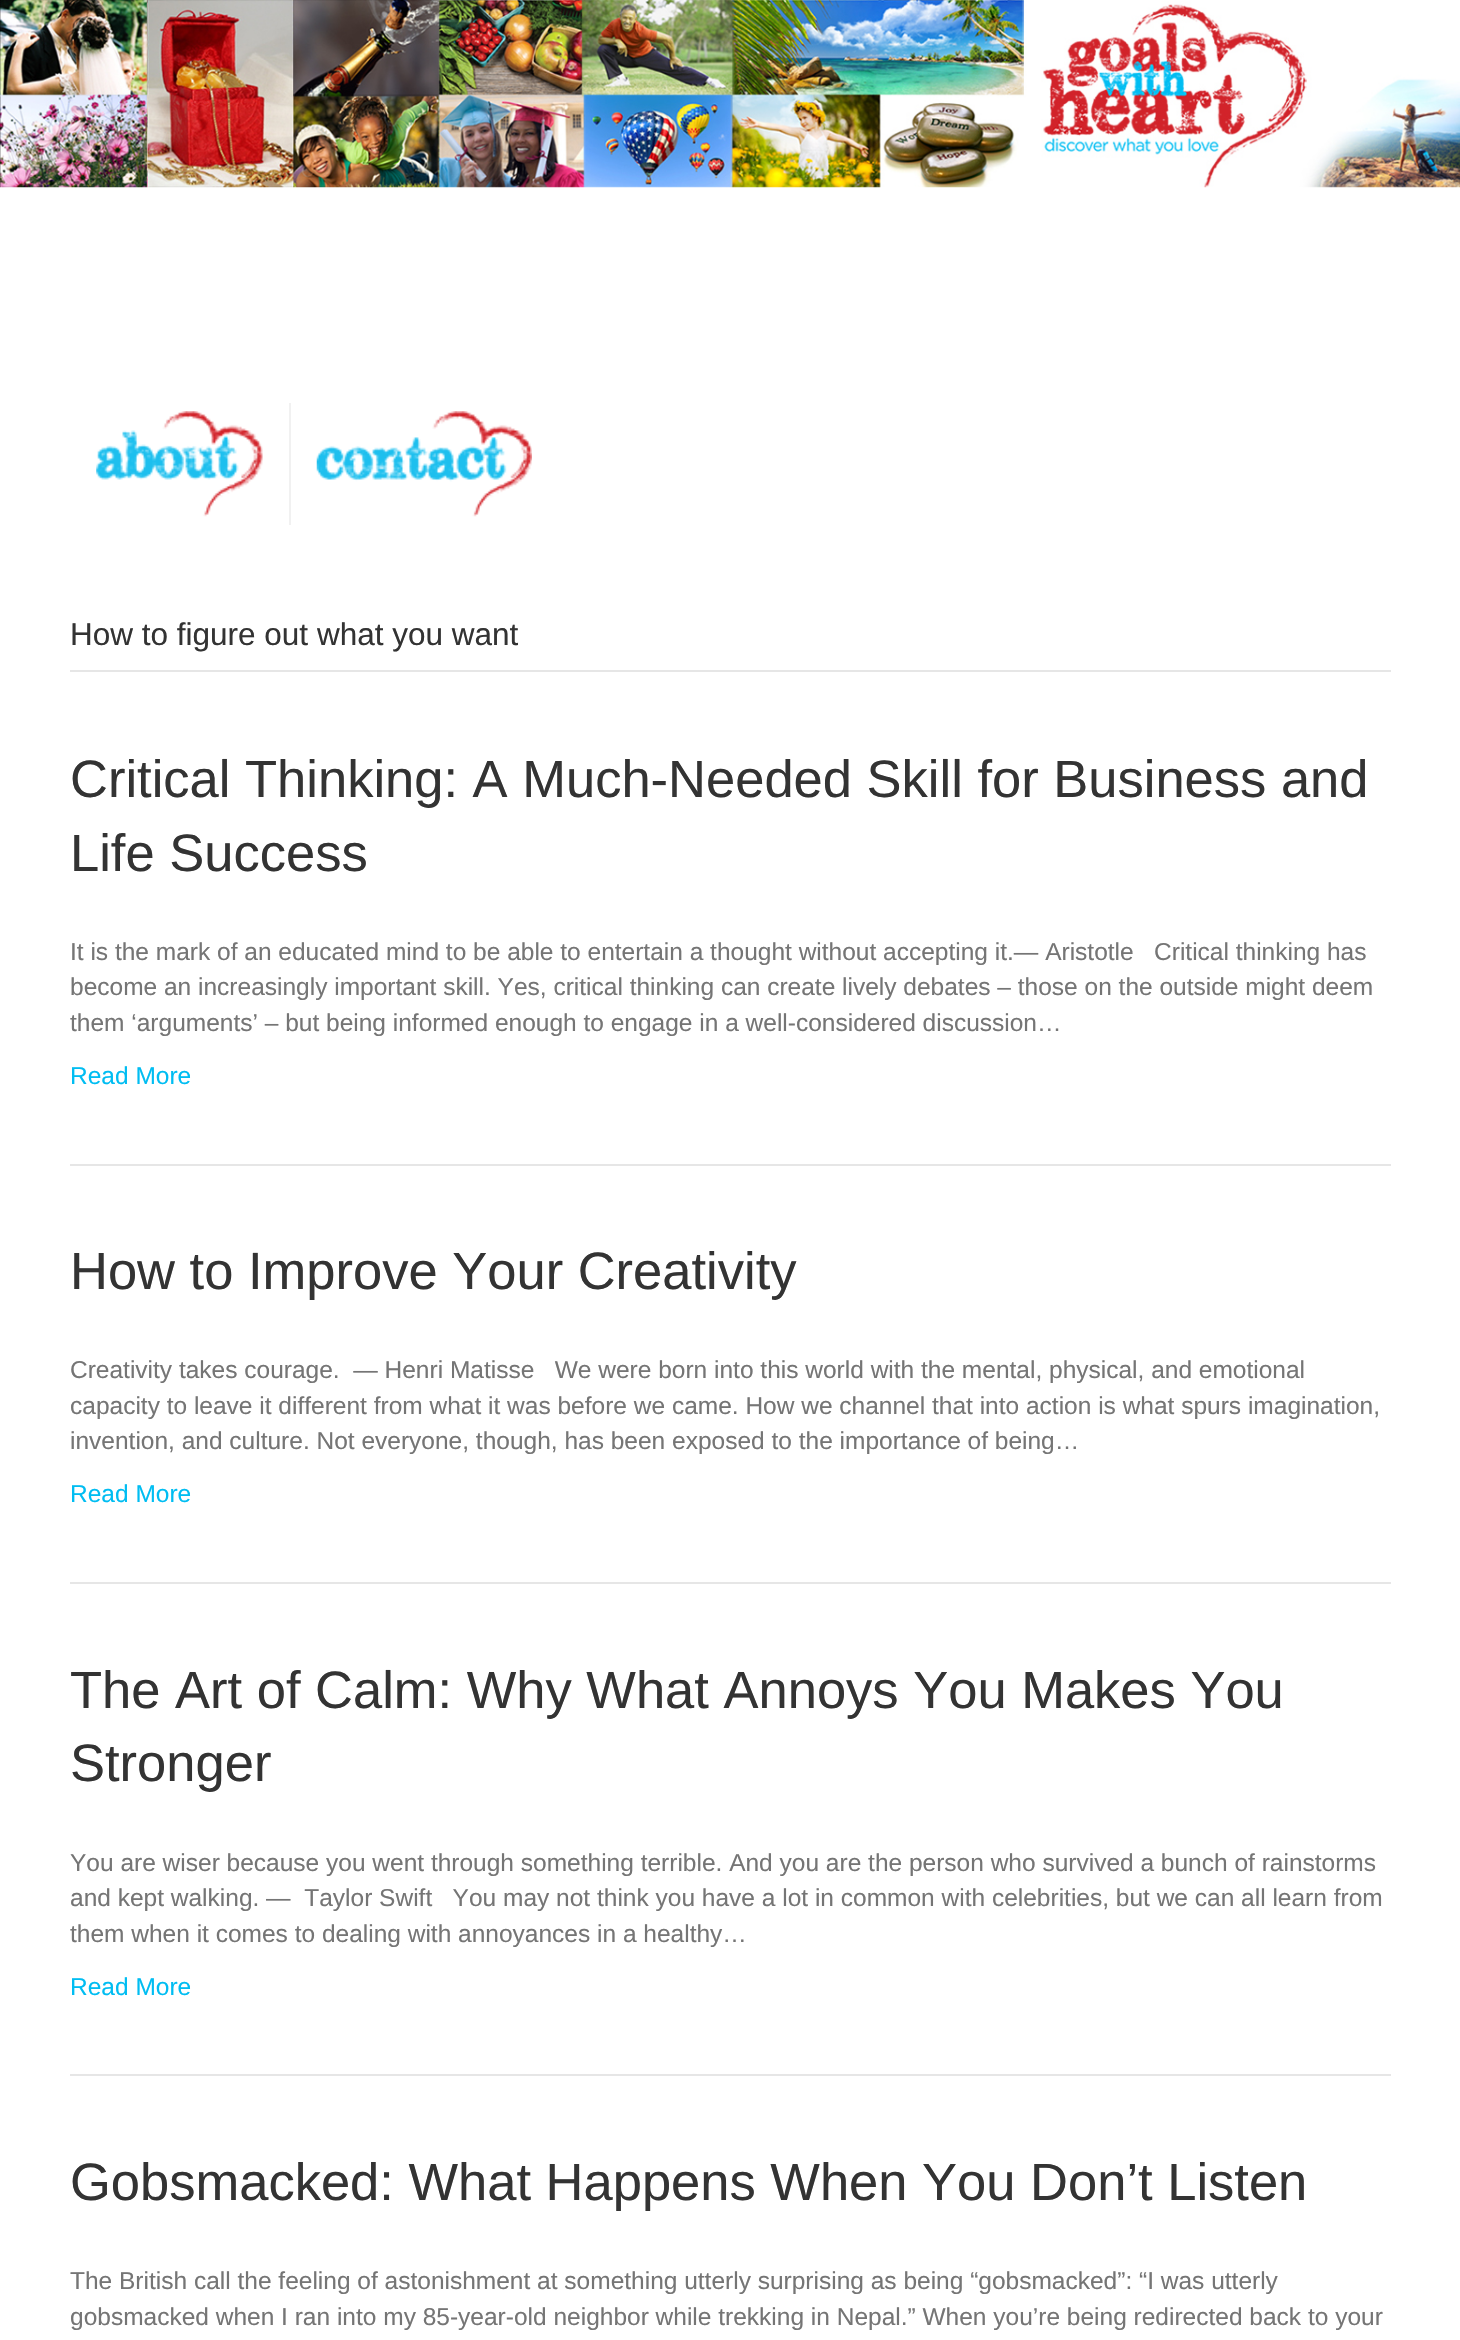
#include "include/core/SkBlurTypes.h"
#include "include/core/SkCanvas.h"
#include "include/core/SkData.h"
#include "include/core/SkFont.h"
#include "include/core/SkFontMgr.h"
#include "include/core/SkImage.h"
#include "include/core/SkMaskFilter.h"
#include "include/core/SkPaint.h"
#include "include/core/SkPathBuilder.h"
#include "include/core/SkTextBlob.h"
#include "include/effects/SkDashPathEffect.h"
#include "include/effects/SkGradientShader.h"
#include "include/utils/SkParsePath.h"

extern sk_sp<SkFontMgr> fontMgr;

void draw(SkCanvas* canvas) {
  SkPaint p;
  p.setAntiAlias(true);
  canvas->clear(SK_ColorWHITE);
  canvas->drawImageRect(SkImages::DeferredFromEncodedData(SkData::MakeFromFileName("images/1.png")), SkRect::MakeLTRB(0, 0, 1460, 188), SkSamplingOptions());
  p.setColor(SkColorSetRGB(241, 241, 241));
  canvas->drawRect(SkRect::MakeLTRB(289, 403, 291, 525), p);
  canvas->drawImageRect(SkImages::DeferredFromEncodedData(SkData::MakeFromFileName("images/2.png")), SkRect::MakeLTRB(96, 411, 263, 517), SkSamplingOptions());
  canvas->drawImageRect(SkImages::DeferredFromEncodedData(SkData::MakeFromFileName("images/3.png")), SkRect::MakeLTRB(316, 411, 532, 517), SkSamplingOptions());
  p.setColor(SkColorSetRGB(230, 230, 230));
  canvas->drawRect(SkRect::MakeLTRB(70, 670, 1391, 672), p);
  canvas->drawRect(SkRect::MakeLTRB(70, 1164, 1391, 1166), p);
  canvas->drawRect(SkRect::MakeLTRB(70, 1582, 1391, 1584), p);
  canvas->drawRect(SkRect::MakeLTRB(70, 2074, 1391, 2076), p);
  SkFont font1(fontMgr->matchFamilyStyle("Liberation Sans", SkFontStyle::Normal()), 31.5f);
  font1.setSubpixel(true);
  p.setColor(SkColorSetRGB(51, 51, 51));
  canvas->drawString("How to figure out what you want", 70, 645, font1, p);
  SkFont font2(fontMgr->matchFamilyStyle("Liberation Sans", SkFontStyle::Normal()), 52.5f);
  font2.setSubpixel(true);
  canvas->drawString("Critical Thinking: A Much-Needed Skill for Business and", 70, 797, font2, p);
  canvas->drawString("Life Success", 70, 871, font2, p);
  SkFont font3(fontMgr->matchFamilyStyle("Liberation Sans", SkFontStyle::Normal()), 24.5f);
  font3.setSubpixel(true);
  p.setColor(SkColorSetRGB(117, 117, 117));
  canvas->drawString("It is the mark of an educated mind to be able to entertain a thought without accepting it.— Aristotle   Critical thinking has", 70, 960, font3, p);
  canvas->drawString("become an increasingly important skill. Yes, critical thinking can create lively debates – those on the outside might deem", 70, 995, font3, p);
  canvas->drawString("them ‘arguments’ – but being informed enough to engage in a well-considered discussion…", 70, 1031, font3, p);
  p.setColor(SkColorSetRGB(0, 189, 242));
  canvas->drawString("Read More", 70, 1084, font3, p);
  p.setColor(SkColorSetRGB(51, 51, 51));
  canvas->drawString("How to Improve Your Creativity", 70, 1289, font2, p);
  p.setColor(SkColorSetRGB(117, 117, 117));
  canvas->drawString("Creativity takes courage.  ― Henri Matisse   We were born into this world with the mental, physical, and emotional", 70, 1378, font3, p);
  canvas->drawString("capacity to leave it different from what it was before we came. How we channel that into action is what spurs imagination,", 70, 1414, font3, p);
  canvas->drawString("invention, and culture. Not everyone, though, has been exposed to the importance of being…", 70, 1449, font3, p);
  p.setColor(SkColorSetRGB(0, 189, 242));
  canvas->drawString("Read More", 70, 1502, font3, p);
  p.setColor(SkColorSetRGB(51, 51, 51));
  canvas->drawString("The Art of Calm: Why What Annoys You Makes You", 70, 1708, font2, p);
  canvas->drawString("Stronger", 70, 1781, font2, p);
  p.setColor(SkColorSetRGB(117, 117, 117));
  canvas->drawString("You are wiser because you went through something terrible. And you are the person who survived a bunch of rainstorms", 70, 1871, font3, p);
  canvas->drawString("and kept walking. ―  Taylor Swift   You may not think you have a lot in common with celebrities, but we can all learn from", 70, 1906, font3, p);
  canvas->drawString("them when it comes to dealing with annoyances in a healthy…", 70, 1942, font3, p);
  p.setColor(SkColorSetRGB(0, 189, 242));
  canvas->drawString("Read More", 70, 1995, font3, p);
  p.setColor(SkColorSetRGB(51, 51, 51));
  canvas->drawString("Gobsmacked: What Happens When You Don’t Listen", 70, 2200, font2, p);
  p.setColor(SkColorSetRGB(117, 117, 117));
  canvas->drawString("The British call the feeling of astonishment at something utterly surprising as being “gobsmacked”: “I was utterly", 70, 2289, font3, p);
  canvas->drawString("gobsmacked when I ran into my 85-year-old neighbor while trekking in Nepal.” When you’re being redirected back to your", 70, 2325, font3, p);
}
